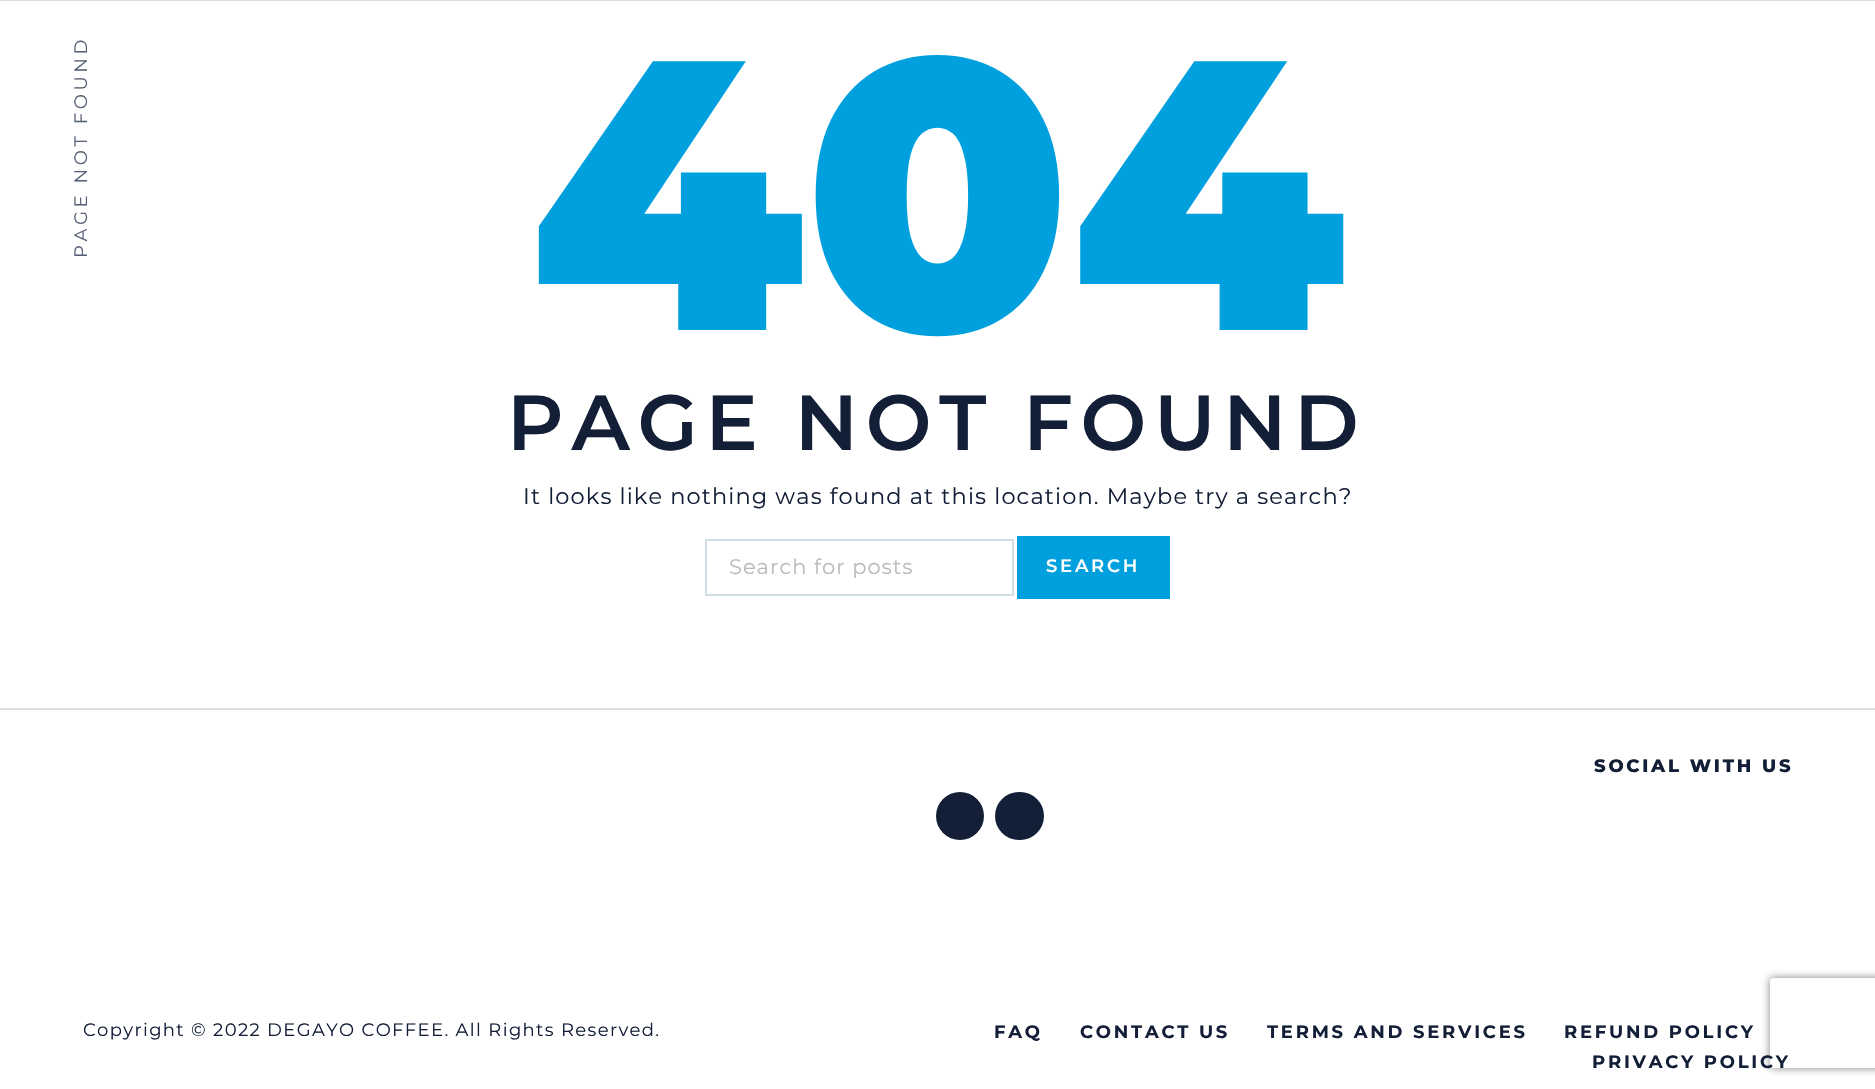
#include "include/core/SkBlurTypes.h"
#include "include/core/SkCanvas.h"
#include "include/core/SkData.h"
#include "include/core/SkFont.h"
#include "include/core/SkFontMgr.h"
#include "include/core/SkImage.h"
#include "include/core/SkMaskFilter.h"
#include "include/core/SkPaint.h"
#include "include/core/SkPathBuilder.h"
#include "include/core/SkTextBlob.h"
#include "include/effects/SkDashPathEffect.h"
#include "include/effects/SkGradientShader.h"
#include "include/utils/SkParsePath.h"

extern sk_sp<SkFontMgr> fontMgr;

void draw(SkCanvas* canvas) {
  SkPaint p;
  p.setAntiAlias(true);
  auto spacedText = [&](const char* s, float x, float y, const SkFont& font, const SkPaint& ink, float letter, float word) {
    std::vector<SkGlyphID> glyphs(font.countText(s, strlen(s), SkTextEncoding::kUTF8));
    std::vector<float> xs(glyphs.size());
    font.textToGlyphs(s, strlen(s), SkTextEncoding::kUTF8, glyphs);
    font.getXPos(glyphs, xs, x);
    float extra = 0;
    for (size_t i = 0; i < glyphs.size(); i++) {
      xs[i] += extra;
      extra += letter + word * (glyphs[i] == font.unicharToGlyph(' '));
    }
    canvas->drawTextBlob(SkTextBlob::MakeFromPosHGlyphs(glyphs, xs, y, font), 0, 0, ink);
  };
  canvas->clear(SK_ColorWHITE);
  p.setColor(SkColorSetRGB(220, 221, 225));
  canvas->drawRect(SkRect::MakeLTRB(0, 0, 1875, 1), p);
  p.setStyle(SkPaint::kStroke_Style);
  p.setStrokeWidth(2);
  p.setColor(SkColorSetRGB(208, 221, 226));
  canvas->drawRect(SkRect::MakeLTRB(706, 540, 1013, 595), p);
  p.setStyle(SkPaint::kFill_Style);
  p.setColor(SkColorSetRGB(0, 160, 222));
  canvas->drawRect(SkRect::MakeLTRB(1017, 536, 1170, 599), p);
  p.setColor(SkColorSetRGB(220, 221, 225));
  canvas->drawRect(SkRect::MakeLTRB(0, 708, 1875, 710), p);
  p.setColor(SkColorSetRGB(19, 30, 55));
  canvas->drawCircle(960, 816, 24, p);
  canvas->drawRoundRect(SkRect::MakeLTRB(995, 792, 1044, 840), 24, 24, p);
  canvas->save();
  canvas->clipPath(SkPathBuilder(SkPathFillType::kEvenOdd).moveTo(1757, 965).lineTo(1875, 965).lineTo(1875, 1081).lineTo(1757, 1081).close().moveTo(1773, 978).lineTo(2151, 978).cubicTo(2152.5f, 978, 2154, 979.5f, 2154, 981).lineTo(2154, 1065).cubicTo(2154, 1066.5f, 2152.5f, 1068, 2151, 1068).lineTo(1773, 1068).cubicTo(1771.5f, 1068, 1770, 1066.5f, 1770, 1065).lineTo(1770, 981).cubicTo(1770, 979.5f, 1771.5f, 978, 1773, 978).close().detach(), true);
  p.setColor(SkColorSetRGB(128, 128, 128));
  p.setMaskFilter(SkMaskFilter::MakeBlur(kNormal_SkBlurStyle, 4));
  canvas->drawRoundRect(SkRect::MakeLTRB(1770, 978, 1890, 1068), 3, 3, p);
  p.setMaskFilter(nullptr);
  canvas->restore();
  SkFont font1(fontMgr->matchFamilyStyle("Montserrat", SkFontStyle::Normal()), 18);
  font1.setSubpixel(true);
  p.setColor(SkColorSetRGB(87, 97, 119));
  canvas->save();
  canvas->rotate(-90, 87, 258);
  spacedText("PAGE NOT FOUND", 87, 258, font1, p, 3.6f, 0);
  canvas->restore();
  SkFont font2(fontMgr->matchFamilyStyle("Montserrat", SkFontStyle(900, SkFontStyle::kNormal_Width, SkFontStyle::kUpright_Slant)), 384);
  font2.setSubpixel(true);
  p.setColor(SkColorSetRGB(0, 160, 222));
  spacedText("404", 530, 330, font2, p, 1.12f, 0);
  SkFont font3(fontMgr->matchFamilyStyle("Montserrat", SkFontStyle(600, SkFontStyle::kNormal_Width, SkFontStyle::kUpright_Slant)), 78);
  font3.setSubpixel(true);
  p.setColor(SkColorSetRGB(19, 30, 55));
  spacedText("PAGE NOT FOUND", 507, 450, font3, p, 7.75f, 0);
  SkFont font4(fontMgr->matchFamilyStyle("Montserrat", SkFontStyle::Normal()), 22.5f);
  font4.setSubpixel(true);
  spacedText("It looks like nothing was found at this location. Maybe try a search?", 523, 504, font4, p, 1.12f, 0);
  SkFont font5(fontMgr->matchFamilyStyle("Montserrat", SkFontStyle::Normal()), 21);
  font5.setSubpixel(true);
  p.setColor(SkColorSetRGB(187, 187, 187));
  spacedText("Search for posts", 729, 574, font5, p, 1, 0);
  SkFont font6(fontMgr->matchFamilyStyle("Montserrat", SkFontStyle(600, SkFontStyle::kNormal_Width, SkFontStyle::kUpright_Slant)), 18);
  font6.setSubpixel(true);
  p.setColor(SK_ColorWHITE);
  spacedText("SEARCH", 1046, 572, font6, p, 2.75f, 0);
  SkFont font7(fontMgr->matchFamilyStyle("Montserrat", SkFontStyle(800, SkFontStyle::kNormal_Width, SkFontStyle::kUpright_Slant)), 18);
  font7.setSubpixel(true);
  p.setColor(SkColorSetRGB(19, 30, 55));
  spacedText("SOCIAL WITH US", 1594, 772, font7, p, 2.75f, 0);
  spacedText("Copyright © 2022 DEGAYO COFFEE. All Rights Reserved.", 83, 1036, font1, p, 1.35f, 0);
  SkFont font8(fontMgr->matchFamilyStyle("Montserrat", SkFontStyle::Bold()), 18);
  font8.setSubpixel(true);
  spacedText("FAQ", 994, 1038, font8, p, 2.75f, 0);
  spacedText("CONTACT US", 1080, 1038, font8, p, 2.75f, 0);
  spacedText("TERMS AND SERVICES", 1267, 1038, font8, p, 2.75f, 0);
  spacedText("REFUND POLICY", 1564, 1038, font8, p, 2.75f, 0);
  spacedText("PRIVACY POLICY", 1592, 1068, font8, p, 2.75f, 0);
}
